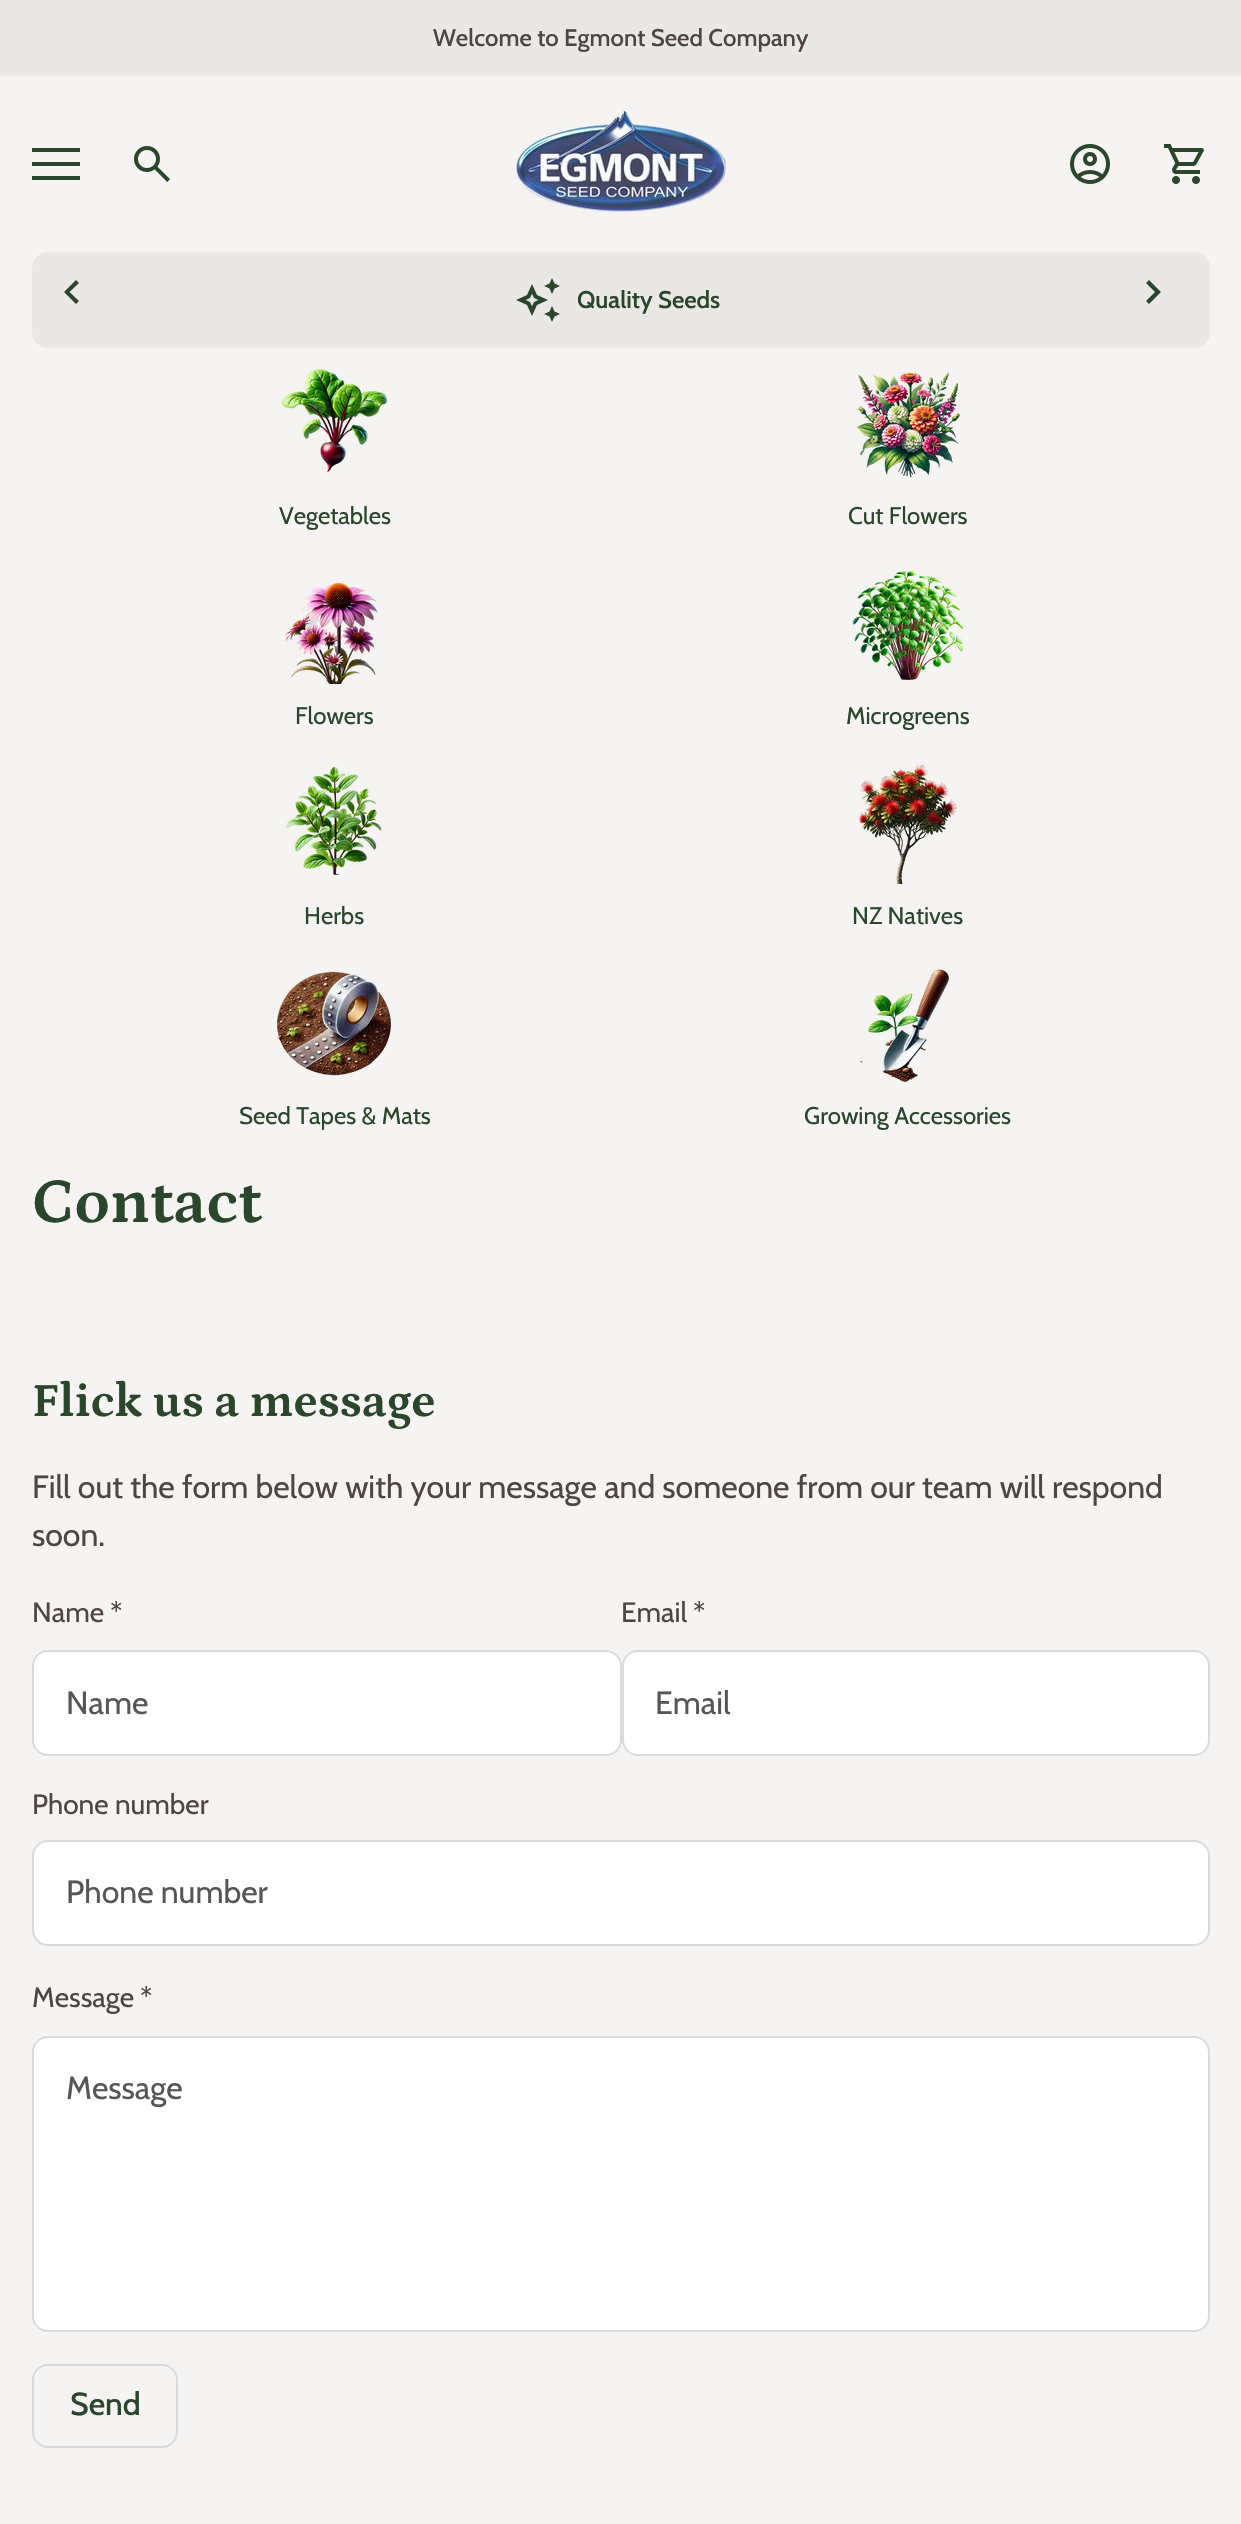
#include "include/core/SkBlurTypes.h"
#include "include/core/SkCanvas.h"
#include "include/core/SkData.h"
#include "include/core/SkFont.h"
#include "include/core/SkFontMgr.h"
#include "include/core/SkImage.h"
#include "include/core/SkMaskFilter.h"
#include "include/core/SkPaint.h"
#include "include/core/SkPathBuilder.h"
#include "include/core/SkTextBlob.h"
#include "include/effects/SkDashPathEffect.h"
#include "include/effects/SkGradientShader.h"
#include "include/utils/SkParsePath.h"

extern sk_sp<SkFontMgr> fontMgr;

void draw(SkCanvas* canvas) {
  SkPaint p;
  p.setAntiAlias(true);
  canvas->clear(SkColorSetRGB(245, 244, 242));
  p.setColor(SkColorSetRGB(234, 232, 228));
  canvas->drawRect(SkRect::MakeLTRB(0, 0, 1241, 76), p);
  p.setColor(SkColorSetRGB(42, 71, 43));
  canvas->drawRect(SkRect::MakeLTRB(32, 148, 80, 152), p);
  canvas->drawRect(SkRect::MakeLTRB(32, 162, 80, 166), p);
  canvas->drawRect(SkRect::MakeLTRB(32, 176, 80, 180), p);
  canvas->drawImageRect(SkImages::DeferredFromEncodedData(SkData::MakeFromFileName("images/1.png")), SkRect::MakeLTRB(134, 146, 170, 182), SkSamplingOptions());
  canvas->drawImageRect(SkImages::DeferredFromEncodedData(SkData::MakeFromFileName("images/2.png")), SkRect::MakeLTRB(516, 110, 727, 212), SkSamplingOptions());
  canvas->drawImageRect(SkImages::DeferredFromEncodedData(SkData::MakeFromFileName("images/3.png")), SkRect::MakeLTRB(1070, 144, 1110, 184), SkSamplingOptions());
  canvas->drawImageRect(SkImages::DeferredFromEncodedData(SkData::MakeFromFileName("images/4.png")), SkRect::MakeLTRB(1164, 144, 1204, 184), SkSamplingOptions());
  p.setColor(SkColorSetRGB(234, 232, 228));
  canvas->drawRoundRect(SkRect::MakeLTRB(32, 252, 1210, 348), 16, 16, p);
  p.setColor(SkColorSetRGB(42, 71, 43));
  canvas->drawPath(SkPathBuilder().moveTo(76, 304).lineTo(64, 292).lineTo(76, 280).lineTo(79, 283).lineTo(69.5f, 292).lineTo(79, 301).close().detach(), p);
  canvas->drawImageRect(SkImages::DeferredFromEncodedData(SkData::MakeFromFileName("images/5.png")), SkRect::MakeLTRB(516, 278, 560, 322), SkSamplingOptions());
  canvas->drawPath(SkPathBuilder().moveTo(1155, 292).lineTo(1146, 283).lineTo(1149, 280).lineTo(1161, 292).lineTo(1149, 304).lineTo(1146, 301).close().detach(), p);
  canvas->drawImageRect(SkImages::DeferredFromEncodedData(SkData::MakeFromFileName("images/6.png")), SkRect::MakeLTRB(281, 369, 388, 473), SkSamplingOptions());
  canvas->drawImageRect(SkImages::DeferredFromEncodedData(SkData::MakeFromFileName("images/7.png")), SkRect::MakeLTRB(856, 372, 961, 478), SkSamplingOptions());
  canvas->drawImageRect(SkImages::DeferredFromEncodedData(SkData::MakeFromFileName("images/8.png")), SkRect::MakeLTRB(284, 582, 378, 684), SkSamplingOptions());
  canvas->drawImageRect(SkImages::DeferredFromEncodedData(SkData::MakeFromFileName("images/9.png")), SkRect::MakeLTRB(852, 571, 964, 681), SkSamplingOptions());
  canvas->drawImageRect(SkImages::DeferredFromEncodedData(SkData::MakeFromFileName("images/10.png")), SkRect::MakeLTRB(286, 766, 382, 876), SkSamplingOptions());
  canvas->drawImageRect(SkImages::DeferredFromEncodedData(SkData::MakeFromFileName("images/11.png")), SkRect::MakeLTRB(859, 764, 958, 884), SkSamplingOptions());
  canvas->drawImageRect(SkImages::DeferredFromEncodedData(SkData::MakeFromFileName("images/12.png")), SkRect::MakeLTRB(276, 971, 392, 1076), SkSamplingOptions());
  canvas->drawImageRect(SkImages::DeferredFromEncodedData(SkData::MakeFromFileName("images/13.png")), SkRect::MakeLTRB(860, 969, 950, 1083), SkSamplingOptions());
  p.setColor(SK_ColorWHITE);
  canvas->drawRoundRect(SkRect::MakeLTRB(33, 1651, 621, 1755), 15, 15, p);
  p.setStyle(SkPaint::kStroke_Style);
  p.setStrokeWidth(2);
  p.setColor(SkColorSetRGB(218, 218, 218));
  canvas->drawRoundRect(SkRect::MakeLTRB(33, 1651, 621, 1755), 15, 15, p);
  p.setStyle(SkPaint::kFill_Style);
  p.setColor(SK_ColorWHITE);
  canvas->drawRoundRect(SkRect::MakeLTRB(623, 1651, 1209, 1755), 15, 15, p);
  p.setStyle(SkPaint::kStroke_Style);
  p.setColor(SkColorSetRGB(218, 218, 218));
  canvas->drawRoundRect(SkRect::MakeLTRB(623, 1651, 1209, 1755), 15, 15, p);
  p.setStyle(SkPaint::kFill_Style);
  p.setColor(SK_ColorWHITE);
  canvas->drawRoundRect(SkRect::MakeLTRB(33, 1841, 1209, 1945), 15, 15, p);
  p.setStyle(SkPaint::kStroke_Style);
  p.setColor(SkColorSetRGB(218, 218, 218));
  canvas->drawRoundRect(SkRect::MakeLTRB(33, 1841, 1209, 1945), 15, 15, p);
  p.setStyle(SkPaint::kFill_Style);
  p.setColor(SK_ColorWHITE);
  canvas->drawRoundRect(SkRect::MakeLTRB(33, 2037, 1209, 2331), 15, 15, p);
  p.setStyle(SkPaint::kStroke_Style);
  p.setColor(SkColorSetRGB(218, 218, 218));
  canvas->drawRoundRect(SkRect::MakeLTRB(33, 2037, 1209, 2331), 15, 15, p);
  canvas->drawRoundRect(SkRect::MakeLTRB(33, 2365, 177, 2447), 15, 15, p);
  SkFont font1(fontMgr->matchFamilyStyle("Cabin", SkFontStyle(500, SkFontStyle::kNormal_Width, SkFontStyle::kUpright_Slant)), 24);
  font1.setSubpixel(true);
  p.setStyle(SkPaint::kFill_Style);
  p.setColor(SkColorSetRGB(80, 69, 69));
  canvas->drawString("Welcome to Egmont Seed Company", 433, 46, font1, p);
  SkFont font2(fontMgr->matchFamilyStyle("Cabin", SkFontStyle(600, SkFontStyle::kNormal_Width, SkFontStyle::kUpright_Slant)), 24);
  font2.setSubpixel(true);
  p.setColor(SkColorSetRGB(42, 71, 43));
  canvas->drawString("Quality Seeds", 577, 308, font2, p);
  SkFont font3(fontMgr->matchFamilyStyle("Cabin", SkFontStyle::Normal()), 24);
  font3.setSubpixel(true);
  canvas->drawString("Vegetables", 279, 524, font3, p);
  canvas->drawString("Cut Flowers", 848, 524, font3, p);
  canvas->drawString("Flowers", 295, 724, font3, p);
  canvas->drawString("Microgreens", 846, 724, font3, p);
  canvas->drawString("Herbs", 304, 924, font3, p);
  canvas->drawString("NZ Natives", 852, 924, font3, p);
  canvas->drawString("Seed Tapes & Mats", 239, 1124, font3, p);
  canvas->drawString("Growing Accessories", 804, 1124, font3, p);
  SkFont font4(fontMgr->matchFamilyStyle("Petrona", SkFontStyle::Bold()), 64);
  font4.setSubpixel(true);
  canvas->drawString("Contact", 32, 1222, font4, p);
  SkFont font5(fontMgr->matchFamilyStyle("Petrona", SkFontStyle::Bold()), 48);
  font5.setSubpixel(true);
  canvas->drawString("Flick us a message", 32, 1416, font5, p);
  SkFont font6(fontMgr->matchFamilyStyle("Cabin", SkFontStyle::Normal()), 32);
  font6.setSubpixel(true);
  p.setColor(SkColorSetRGB(80, 69, 69));
  canvas->drawString("Fill out the form below with your message and someone from our team will respond", 32, 1498, font6, p);
  canvas->drawString("soon.", 32, 1546, font6, p);
  SkFont font7(fontMgr->matchFamilyStyle("Cabin", SkFontStyle::Normal()), 28);
  font7.setSubpixel(true);
  canvas->drawString("Name *", 32, 1622, font7, p);
  p.setColor(SkColorSetRGB(86, 86, 86));
  canvas->drawString("Name", 66, 1714, font6, p);
  p.setColor(SkColorSetRGB(80, 69, 69));
  canvas->drawString("Email *", 621, 1622, font7, p);
  p.setColor(SkColorSetRGB(86, 86, 86));
  canvas->drawString("Email", 655, 1714, font6, p);
  p.setColor(SkColorSetRGB(80, 69, 69));
  canvas->drawString("Phone number", 32, 1814, font7, p);
  p.setColor(SkColorSetRGB(86, 86, 86));
  canvas->drawString("Phone number", 66, 1903, font6, p);
  p.setColor(SkColorSetRGB(80, 69, 69));
  canvas->drawString("Message *", 32, 2007, font7, p);
  p.setColor(SkColorSetRGB(86, 86, 86));
  canvas->drawString("Message", 66, 2099, font6, p);
  SkFont font8(fontMgr->matchFamilyStyle("Cabin", SkFontStyle(500, SkFontStyle::kNormal_Width, SkFontStyle::kUpright_Slant)), 32);
  font8.setSubpixel(true);
  p.setColor(SkColorSetRGB(42, 71, 43));
  canvas->drawString("Send", 70, 2415, font8, p);
}
